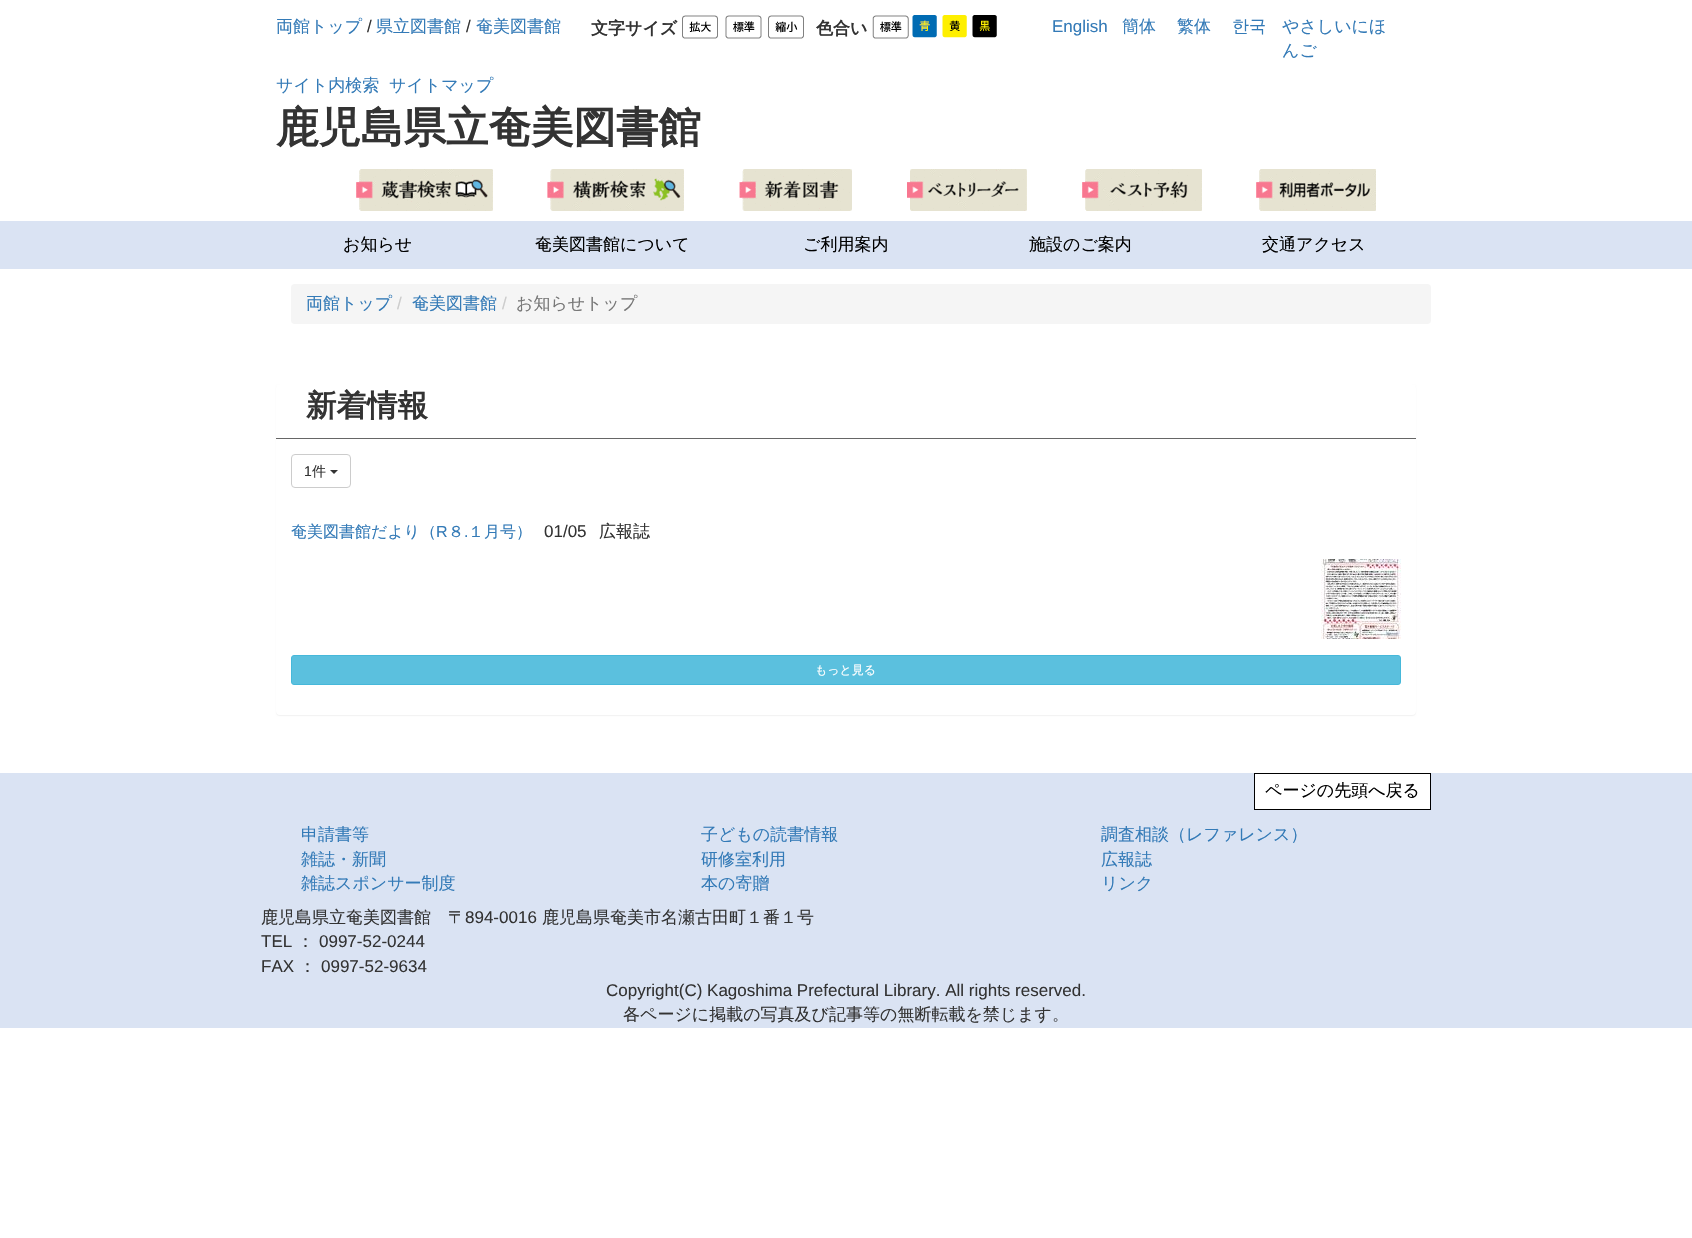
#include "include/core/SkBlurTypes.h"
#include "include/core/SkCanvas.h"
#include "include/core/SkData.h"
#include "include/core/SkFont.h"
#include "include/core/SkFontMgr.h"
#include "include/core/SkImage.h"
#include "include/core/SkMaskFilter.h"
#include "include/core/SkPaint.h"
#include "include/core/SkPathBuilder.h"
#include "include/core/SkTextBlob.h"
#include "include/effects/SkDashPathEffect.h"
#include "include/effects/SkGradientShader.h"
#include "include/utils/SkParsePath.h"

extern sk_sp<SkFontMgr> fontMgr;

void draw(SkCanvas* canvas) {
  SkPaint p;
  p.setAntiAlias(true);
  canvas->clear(SK_ColorWHITE);
  canvas->drawImageRect(SkImages::DeferredFromEncodedData(SkData::MakeFromFileName("images/1.png")), SkRect::MakeLTRB(682, 15, 718, 39), SkSamplingOptions());
  canvas->drawImageRect(SkImages::DeferredFromEncodedData(SkData::MakeFromFileName("images/2.png")), SkRect::MakeLTRB(725, 15, 762, 39), SkSamplingOptions());
  canvas->drawImageRect(SkImages::DeferredFromEncodedData(SkData::MakeFromFileName("images/3.png")), SkRect::MakeLTRB(768, 15, 804, 39), SkSamplingOptions());
  canvas->drawImageRect(SkImages::DeferredFromEncodedData(SkData::MakeFromFileName("images/4.png")), SkRect::MakeLTRB(872, 15, 909, 39), SkSamplingOptions());
  canvas->drawImageRect(SkImages::DeferredFromEncodedData(SkData::MakeFromFileName("images/5.png")), SkRect::MakeLTRB(912, 15, 937, 38), SkSamplingOptions());
  canvas->drawImageRect(SkImages::DeferredFromEncodedData(SkData::MakeFromFileName("images/6.png")), SkRect::MakeLTRB(942, 15, 967, 38), SkSamplingOptions());
  canvas->drawImageRect(SkImages::DeferredFromEncodedData(SkData::MakeFromFileName("images/7.png")), SkRect::MakeLTRB(972, 15, 997, 38), SkSamplingOptions());
  canvas->drawImageRect(SkImages::DeferredFromEncodedData(SkData::MakeFromFileName("images/8.png")), SkRect::MakeLTRB(356, 169, 493, 211), SkSamplingOptions());
  canvas->drawImageRect(SkImages::DeferredFromEncodedData(SkData::MakeFromFileName("images/9.png")), SkRect::MakeLTRB(547, 169, 684, 211), SkSamplingOptions());
  canvas->drawImageRect(SkImages::DeferredFromEncodedData(SkData::MakeFromFileName("images/10.png")), SkRect::MakeLTRB(739, 169, 852, 211), SkSamplingOptions());
  canvas->drawImageRect(SkImages::DeferredFromEncodedData(SkData::MakeFromFileName("images/11.png")), SkRect::MakeLTRB(907, 169, 1027, 211), SkSamplingOptions());
  canvas->drawImageRect(SkImages::DeferredFromEncodedData(SkData::MakeFromFileName("images/12.png")), SkRect::MakeLTRB(1082, 169, 1202, 211), SkSamplingOptions());
  canvas->drawImageRect(SkImages::DeferredFromEncodedData(SkData::MakeFromFileName("images/13.png")), SkRect::MakeLTRB(1256, 169, 1376, 211), SkSamplingOptions());
  p.setColor(SkColorSetRGB(218, 227, 243));
  canvas->drawRect(SkRect::MakeLTRB(0, 221, 1692, 269), p);
  p.setColor(SkColorSetRGB(245, 245, 245));
  canvas->drawRoundRect(SkRect::MakeLTRB(291, 284, 1431, 324), 4, 4, p);
  p.setColor(SkColorSetARGB(13, 0, 0, 0));
  p.setMaskFilter(SkMaskFilter::MakeBlur(kNormal_SkBlurStyle, 0.5f));
  canvas->drawRoundRect(SkRect::MakeLTRB(276, 385, 1416, 716), 4, 4, p);
  p.setMaskFilter(nullptr);
  p.setColor(SK_ColorWHITE);
  canvas->drawRoundRect(SkRect::MakeLTRB(276, 384, 1416, 715), 4, 4, p);
  p.setColor(SkColorSetRGB(102, 102, 102));
  canvas->drawRect(SkRect::MakeLTRB(276, 438, 1416, 439), p);
  p.setStyle(SkPaint::kStroke_Style);
  p.setStrokeWidth(1);
  p.setColor(SkColorSetRGB(204, 204, 204));
  canvas->drawRoundRect(SkRect::MakeLTRB(291.5f, 454.5f, 350.5f, 487.5f), 3.5f, 3.5f, p);
  p.setStyle(SkPaint::kFill_Style);
  p.setColor(SkColorSetRGB(51, 51, 51));
  canvas->drawPath(SkPathBuilder().moveTo(330, 470).lineTo(338, 470).lineTo(334, 474).close().detach(), p);
  canvas->drawImageRect(SkImages::DeferredFromEncodedData(SkData::MakeFromFileName("images/14.png")), SkRect::MakeLTRB(1321, 559, 1401, 639), SkSamplingOptions());
  p.setColor(SkColorSetRGB(91, 192, 222));
  canvas->drawRoundRect(SkRect::MakeLTRB(291.5f, 655.5f, 1400.5f, 684.5f), 2.5f, 2.5f, p);
  p.setStyle(SkPaint::kStroke_Style);
  p.setColor(SkColorSetRGB(70, 184, 218));
  canvas->drawRoundRect(SkRect::MakeLTRB(291.5f, 655.5f, 1400.5f, 684.5f), 2.5f, 2.5f, p);
  p.setStyle(SkPaint::kFill_Style);
  p.setColor(SkColorSetRGB(218, 227, 243));
  canvas->drawRect(SkRect::MakeLTRB(0, 773, 1692, 1028), p);
  p.setColor(SK_ColorWHITE);
  canvas->drawRect(SkRect::MakeLTRB(1254.5f, 773.5f, 1430.5f, 809.5f), p);
  p.setStyle(SkPaint::kStroke_Style);
  p.setColor(SK_ColorBLACK);
  canvas->drawRect(SkRect::MakeLTRB(1254.5f, 773.5f, 1430.5f, 809.5f), p);
  SkFont font1(fontMgr->matchFamilyStyle("WenQuanYi Zen Hei", SkFontStyle(500, SkFontStyle::kNormal_Width, SkFontStyle::kUpright_Slant)), 17);
  font1.setSubpixel(true);
  p.setStyle(SkPaint::kFill_Style);
  p.setColor(SkColorSetRGB(51, 122, 183));
  canvas->drawString("両館トップ", 276, 32, font1, p);
  SkFont font2(fontMgr->matchFamilyStyle("Liberation Sans", SkFontStyle::Normal()), 17);
  font2.setSubpixel(true);
  p.setColor(SkColorSetRGB(51, 51, 51));
  canvas->drawString("/", 367, 32, font2, p);
  p.setColor(SkColorSetRGB(51, 122, 183));
  canvas->drawString("県立図書館", 376, 32, font1, p);
  p.setColor(SkColorSetRGB(51, 51, 51));
  canvas->drawString("/", 466, 32, font2, p);
  p.setColor(SkColorSetRGB(51, 122, 183));
  canvas->drawString("奄美図書館", 476, 32, font1, p);
  SkFont font3(fontMgr->matchFamilyStyle("WenQuanYi Zen Hei", SkFontStyle::Bold()), 17);
  font3.setSubpixel(true);
  p.setColor(SkColorSetRGB(51, 51, 51));
  canvas->drawString("文字サイズ", 591, 34, font3, p);
  canvas->drawString("色合い", 816, 34, font3, p);
  p.setColor(SkColorSetRGB(51, 122, 183));
  canvas->drawString("English", 1052, 32, font2, p);
  canvas->drawString("簡体", 1122, 32, font1, p);
  canvas->drawString("繁体", 1177, 32, font1, p);
  canvas->drawString("한국", 1232, 32, font1, p);
  canvas->drawString("やさしいにほ", 1282, 32, font1, p);
  canvas->drawString("んご", 1282, 56, font1, p);
  canvas->drawString("サイト内検索", 276, 91, font1, p);
  canvas->drawString("サイトマップ", 389, 91, font1, p);
  SkFont font4(fontMgr->matchFamilyStyle("WenQuanYi Zen Hei", SkFontStyle::Bold()), 42.5f);
  font4.setSubpixel(true);
  p.setColor(SkColorSetRGB(51, 51, 51));
  canvas->drawString("鹿児島県立奄美図書館", 276, 142, font4, p);
  p.setColor(SK_ColorBLACK);
  canvas->drawString("お知らせ", 343, 250, font1, p);
  canvas->drawString("奄美図書館について", 535, 250, font1, p);
  canvas->drawString("ご利用案内", 803, 250, font1, p);
  canvas->drawString("施設のご案内", 1029, 250, font1, p);
  canvas->drawString("交通アクセス", 1262, 250, font1, p);
  p.setColor(SkColorSetRGB(51, 122, 183));
  canvas->drawString("両館トップ", 306, 309, font1, p);
  p.setColor(SkColorSetRGB(204, 204, 204));
  canvas->drawString("/", 397, 309, font2, p);
  p.setColor(SkColorSetRGB(51, 122, 183));
  canvas->drawString("奄美図書館", 412, 309, font1, p);
  p.setColor(SkColorSetRGB(204, 204, 204));
  canvas->drawString("/", 502, 309, font2, p);
  p.setColor(SkColorSetRGB(119, 119, 119));
  canvas->drawString("お知らせトップ", 516, 309, font1, p);
  SkFont font5(fontMgr->matchFamilyStyle("WenQuanYi Zen Hei", SkFontStyle::Bold()), 30.5f);
  font5.setSubpixel(true);
  p.setColor(SkColorSetRGB(51, 51, 51));
  canvas->drawString("新着情報", 306, 416, font5, p);
  SkFont font6(fontMgr->matchFamilyStyle("Liberation Sans", SkFontStyle::Normal()), 14);
  font6.setSubpixel(true);
  canvas->drawString("1", 304, 476, font6, p);
  SkFont font7(fontMgr->matchFamilyStyle("WenQuanYi Zen Hei", SkFontStyle(500, SkFontStyle::kNormal_Width, SkFontStyle::kUpright_Slant)), 14);
  font7.setSubpixel(true);
  canvas->drawString("件", 312, 476, font7, p);
  SkFont font8(fontMgr->matchFamilyStyle("WenQuanYi Zen Hei", SkFontStyle(500, SkFontStyle::kNormal_Width, SkFontStyle::kUpright_Slant)), 16);
  font8.setSubpixel(true);
  p.setColor(SkColorSetRGB(51, 122, 183));
  canvas->drawString("奄美図書館だより（", 291, 537, font8, p);
  SkFont font9(fontMgr->matchFamilyStyle("Liberation Sans", SkFontStyle::Normal()), 16);
  font9.setSubpixel(true);
  canvas->drawString("R", 436, 537, font9, p);
  canvas->drawString("８", 448, 537, font8, p);
  canvas->drawString(".", 464, 537, font9, p);
  canvas->drawString("１月号）", 468, 537, font8, p);
  p.setColor(SkColorSetRGB(51, 51, 51));
  canvas->drawString("01/05", 544, 537, font2, p);
  canvas->drawString("広報誌", 599, 537, font1, p);
  SkFont font10(fontMgr->matchFamilyStyle("WenQuanYi Zen Hei", SkFontStyle(500, SkFontStyle::kNormal_Width, SkFontStyle::kUpright_Slant)), 12);
  font10.setSubpixel(true);
  p.setColor(SK_ColorWHITE);
  canvas->drawString("もっと見る", 815, 674, font10, p);
  p.setColor(SK_ColorBLACK);
  canvas->drawString("ページの先頭へ戻る", 1265, 796, font1, p);
  p.setColor(SkColorSetRGB(51, 122, 183));
  canvas->drawString("申請書等", 301, 840, font1, p);
  canvas->drawString("雑誌・新聞", 301, 865, font1, p);
  canvas->drawString("雑誌スポンサー制度", 301, 889, font1, p);
  canvas->drawString("子どもの読書情報", 701, 840, font1, p);
  canvas->drawString("研修室利用", 701, 865, font1, p);
  canvas->drawString("本の寄贈", 701, 889, font1, p);
  canvas->drawString("調査相談（レファレンス）", 1101, 840, font1, p);
  canvas->drawString("広報誌", 1101, 865, font1, p);
  canvas->drawString("リンク", 1101, 889, font1, p);
  p.setColor(SkColorSetRGB(51, 51, 51));
  canvas->drawString("鹿児島県立奄美図書館　〒", 261, 923, font1, p);
  canvas->drawString("894-0016", 465, 923, font2, p);
  canvas->drawString("鹿児島県奄美市名瀬古田町１番１号", 542, 923, font1, p);
  canvas->drawString("TEL", 261, 947, font2, p);
  canvas->drawString("：", 297, 947, font1, p);
  canvas->drawString("0997-52-0244", 319, 947, font2, p);
  canvas->drawString("FAX", 261, 972, font2, p);
  canvas->drawString("：", 299, 972, font1, p);
  canvas->drawString("0997-52-9634", 321, 972, font2, p);
  canvas->drawString("Copyright(C) Kagoshima Prefectural Library. All rights reserved.", 606, 996, font2, p);
  canvas->drawString("各ページに掲載の写真及び記事等の無断転載を禁じます。", 623, 1020, font1, p);
}
